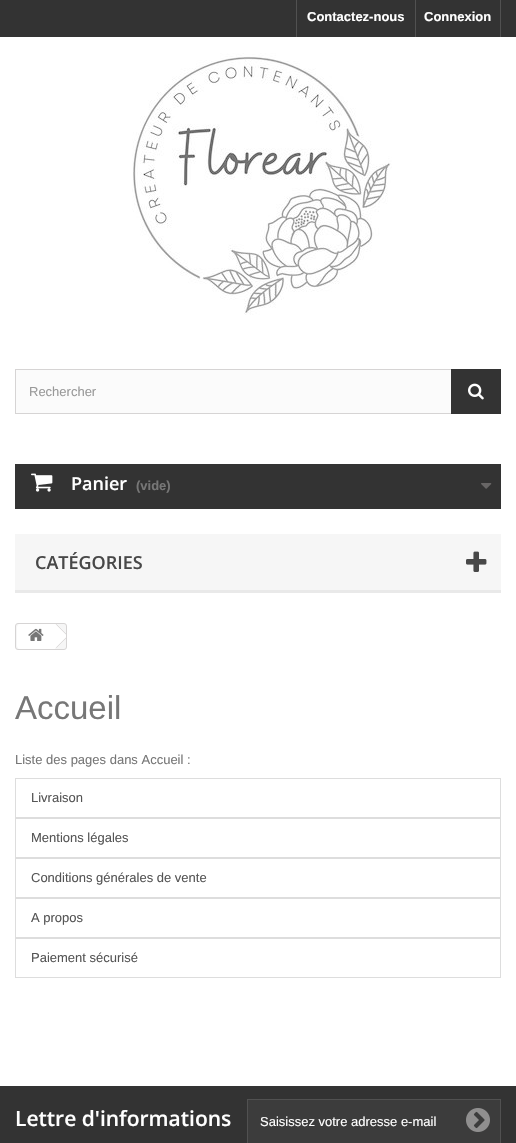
#include "include/core/SkBlurTypes.h"
#include "include/core/SkCanvas.h"
#include "include/core/SkData.h"
#include "include/core/SkFont.h"
#include "include/core/SkFontMgr.h"
#include "include/core/SkImage.h"
#include "include/core/SkMaskFilter.h"
#include "include/core/SkPaint.h"
#include "include/core/SkPathBuilder.h"
#include "include/core/SkTextBlob.h"
#include "include/effects/SkDashPathEffect.h"
#include "include/effects/SkGradientShader.h"
#include "include/utils/SkParsePath.h"

extern sk_sp<SkFontMgr> fontMgr;

void draw(SkCanvas* canvas) {
  SkPaint p;
  p.setAntiAlias(true);
  canvas->clear(SK_ColorWHITE);
  p.setColor(SkColorSetRGB(51, 51, 51));
  canvas->drawRect(SkRect::MakeLTRB(0, 0, 516, 37), p);
  p.setColor(SkColorSetRGB(81, 81, 81));
  canvas->drawRect(SkRect::MakeLTRB(296, 0, 297, 37), p);
  canvas->drawRect(SkRect::MakeLTRB(500, 0, 501, 37), p);
  canvas->drawRect(SkRect::MakeLTRB(415, 0, 416, 37), p);
  canvas->drawImageRect(SkImages::DeferredFromEncodedData(SkData::MakeFromFileName("images/1.png")), SkRect::MakeLTRB(132, 53, 392, 315), SkSamplingOptions());
  p.setColor(SkColorSetRGB(251, 251, 251));
  canvas->drawRect(SkRect::MakeLTRB(16, 370, 451, 413), p);
  p.setStyle(SkPaint::kStroke_Style);
  p.setStrokeWidth(1);
  p.setColor(SkColorSetRGB(214, 212, 212));
  canvas->drawRect(SkRect::MakeLTRB(15.5f, 369.5f, 500.5f, 413.5f), p);
  p.setStyle(SkPaint::kFill_Style);
  p.setColor(SkColorSetRGB(51, 51, 51));
  canvas->drawRect(SkRect::MakeLTRB(451, 369, 501, 414), p);
  canvas->drawImageRect(SkImages::DeferredFromEncodedData(SkData::MakeFromFileName("images/2.png")), SkRect::MakeLTRB(468, 383, 484, 400), SkSamplingOptions());
  canvas->drawRect(SkRect::MakeLTRB(15, 464, 501, 509), p);
  canvas->drawImageRect(SkImages::DeferredFromEncodedData(SkData::MakeFromFileName("images/3.png")), SkRect::MakeLTRB(31, 473, 53, 492), SkSamplingOptions());
  canvas->drawImageRect(SkImages::DeferredFromEncodedData(SkData::MakeFromFileName("images/4.png")), SkRect::MakeLTRB(481, 483, 492, 489), SkSamplingOptions());
  p.setColor(SkColorSetRGB(246, 246, 246));
  canvas->drawRect(SkRect::MakeLTRB(15, 534, 501, 590), p);
  p.setColor(SkColorSetRGB(233, 233, 233));
  canvas->drawRect(SkRect::MakeLTRB(15, 590, 501, 593), p);
  canvas->drawImageRect(SkImages::DeferredFromEncodedData(SkData::MakeFromFileName("images/5.png")), SkRect::MakeLTRB(466, 551, 487, 572), SkSamplingOptions());
  p.setColor(SkColorSetRGB(246, 246, 246));
  canvas->drawRoundRect(SkRect::MakeLTRB(15.5f, 623.5f, 66.5f, 649.5f), 2.5f, 2.5f, p);
  p.setStyle(SkPaint::kStroke_Style);
  p.setColor(SkColorSetRGB(214, 212, 212));
  canvas->drawRoundRect(SkRect::MakeLTRB(15.5f, 623.5f, 66.5f, 649.5f), 2.5f, 2.5f, p);
  p.setStyle(SkPaint::kFill_Style);
  p.setColor(SK_ColorWHITE);
  canvas->drawPath(SkPathBuilder().moveTo(20, 624).lineTo(55, 624).lineTo(55, 649).lineTo(20, 649).cubicTo(18.5f, 649, 17, 647.5f, 17, 646).lineTo(17, 627).cubicTo(17, 625.5f, 18.5f, 624, 20, 624).close().detach(), p);
  canvas->drawImageRect(SkImages::DeferredFromEncodedData(SkData::MakeFromFileName("images/6.png")), SkRect::MakeLTRB(28, 628, 44, 641), SkSamplingOptions());
  canvas->drawPath(SkPathBuilder().moveTo(57.5f, 624.5f).lineTo(66, 633).lineTo(66, 639).lineTo(57.5f, 647.5f).cubicTo(56.5f, 648, 55.5f, 648, 54.5f, 647.5f).lineTo(44.5f, 637.5f).cubicTo(44, 636.5f, 44, 635.5f, 44.5f, 634.5f).lineTo(54.5f, 624.5f).cubicTo(55.5f, 624, 56.5f, 624, 57.5f, 624.5f).close().detach(), p);
  p.setColor(SkColorSetRGB(214, 212, 212));
  canvas->drawPath(SkPathBuilder().moveTo(56.5f, 624).lineTo(66, 633.5f).lineTo(66, 634.5f).lineTo(56, 624.5f).close().moveTo(66, 637.5f).lineTo(66, 638.5f).lineTo(56.5f, 648).lineTo(56, 647.5f).close().detach(), p);
  p.setStyle(SkPaint::kStroke_Style);
  p.setColor(SkColorSetRGB(221, 221, 221));
  canvas->drawRect(SkRect::MakeLTRB(15.5f, 778.5f, 500.5f, 817.5f), p);
  canvas->drawRect(SkRect::MakeLTRB(15.5f, 818.5f, 500.5f, 857.5f), p);
  canvas->drawRect(SkRect::MakeLTRB(15.5f, 858.5f, 500.5f, 897.5f), p);
  canvas->drawRect(SkRect::MakeLTRB(15.5f, 898.5f, 500.5f, 937.5f), p);
  canvas->drawRect(SkRect::MakeLTRB(15.5f, 938.5f, 500.5f, 977.5f), p);
  p.setStyle(SkPaint::kFill_Style);
  p.setColor(SkColorSetRGB(51, 51, 51));
  canvas->drawRect(SkRect::MakeLTRB(0, 1086, 516, 1143), p);
  p.setColor(SkColorSetRGB(60, 60, 60));
  canvas->drawRect(SkRect::MakeLTRB(247.5f, 1099.5f, 500.5f, 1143.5f), p);
  p.setStyle(SkPaint::kStroke_Style);
  p.setColor(SkColorSetRGB(81, 81, 81));
  canvas->drawRect(SkRect::MakeLTRB(247.5f, 1099.5f, 500.5f, 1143.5f), p);
  canvas->drawImageRect(SkImages::DeferredFromEncodedData(SkData::MakeFromFileName("images/7.png")), SkRect::MakeLTRB(466, 1108, 490, 1132), SkSamplingOptions());
  SkFont font1(fontMgr->matchFamilyStyle("Liberation Sans", SkFontStyle::Bold()), 13);
  font1.setSubpixel(true);
  p.setStyle(SkPaint::kFill_Style);
  p.setColor(SK_ColorWHITE);
  canvas->drawString("Contactez-nous", 307, 21, font1, p);
  canvas->drawString("Connexion", 424, 21, font1, p);
  SkFont font2(fontMgr->matchFamilyStyle("Liberation Sans", SkFontStyle::Normal()), 13);
  font2.setSubpixel(true);
  p.setColor(SkColorSetRGB(153, 153, 153));
  canvas->drawString("Rechercher", 29, 396, font2, p);
  SkFont font3(fontMgr->matchFamilyStyle("Open Sans", SkFontStyle(600, SkFontStyle::kNormal_Width, SkFontStyle::kUpright_Slant)), 18);
  font3.setSubpixel(true);
  p.setColor(SK_ColorWHITE);
  canvas->drawString("Panier", 71, 490, font3, p);
  p.setColor(SkColorSetRGB(119, 119, 119));
  canvas->drawString("(vide)", 136, 490, font1, p);
  p.setColor(SkColorSetRGB(72, 72, 72));
  canvas->drawString("CATÉGORIES", 35, 569, font3, p);
  SkFont font4(fontMgr->matchFamilyStyle("Liberation Sans", SkFontStyle::Normal()), 33);
  font4.setSubpixel(true);
  p.setColor(SkColorSetRGB(119, 119, 119));
  canvas->drawString("Accueil", 15, 719, font4, p);
  canvas->drawString("Liste des pages dans Accueil :", 15, 764, font2, p);
  p.setColor(SkColorSetRGB(85, 85, 85));
  canvas->drawString("Livraison", 31, 802, font2, p);
  canvas->drawString("Mentions légales", 31, 842, font2, p);
  canvas->drawString("Conditions générales de vente", 31, 882, font2, p);
  canvas->drawString("A propos", 31, 922, font2, p);
  canvas->drawString("Paiement sécurisé", 31, 962, font2, p);
  SkFont font5(fontMgr->matchFamilyStyle("Open Sans", SkFontStyle(600, SkFontStyle::kNormal_Width, SkFontStyle::kUpright_Slant)), 21);
  font5.setSubpixel(true);
  p.setColor(SK_ColorWHITE);
  canvas->drawString("Lettre d'informations", 15, 1126, font5, p);
  canvas->drawString("Saisissez votre adresse e-mail", 260, 1126, font2, p);
}
